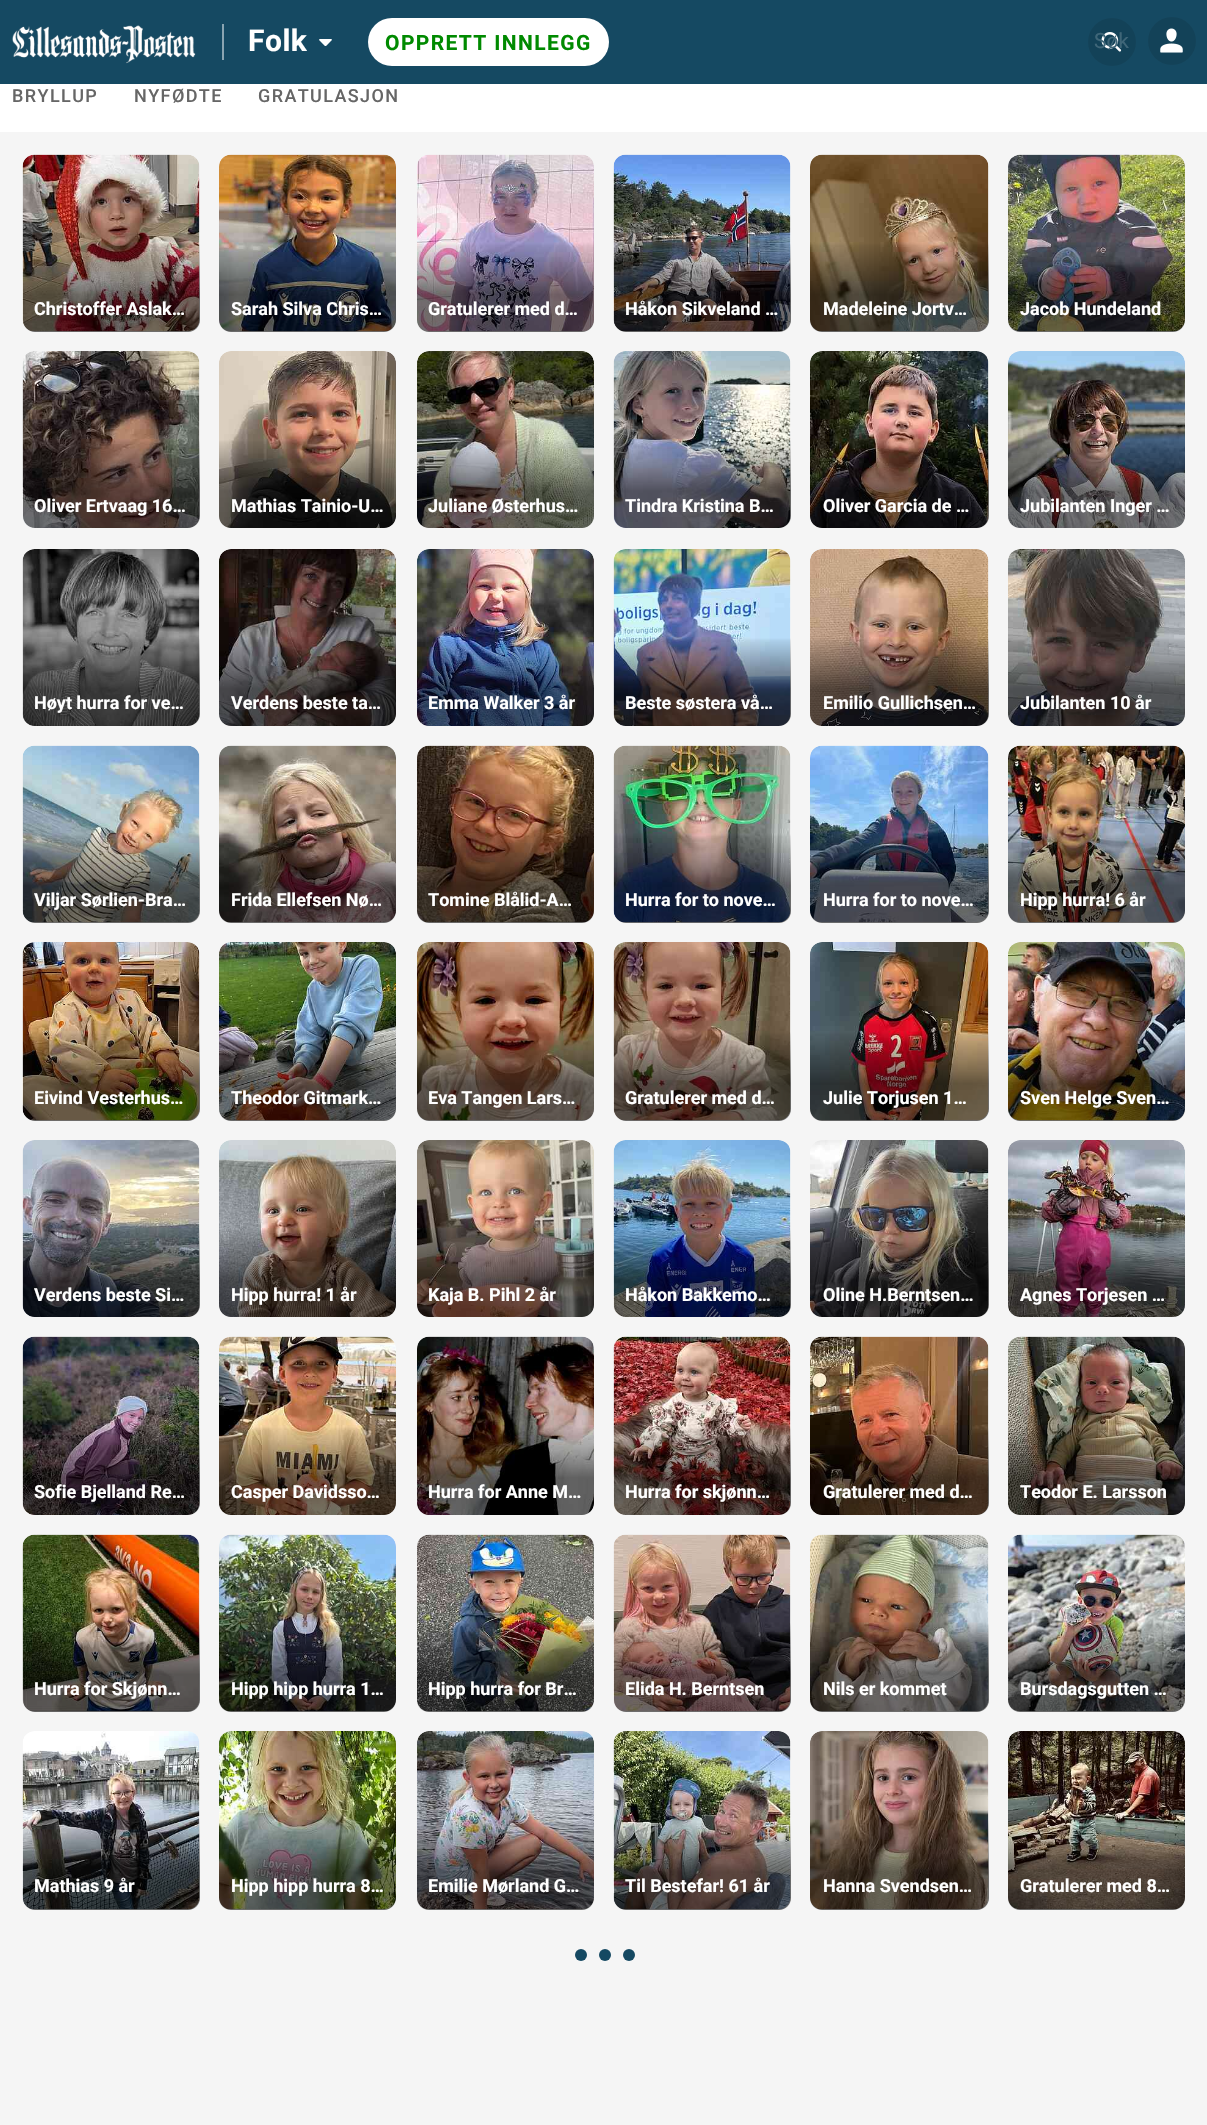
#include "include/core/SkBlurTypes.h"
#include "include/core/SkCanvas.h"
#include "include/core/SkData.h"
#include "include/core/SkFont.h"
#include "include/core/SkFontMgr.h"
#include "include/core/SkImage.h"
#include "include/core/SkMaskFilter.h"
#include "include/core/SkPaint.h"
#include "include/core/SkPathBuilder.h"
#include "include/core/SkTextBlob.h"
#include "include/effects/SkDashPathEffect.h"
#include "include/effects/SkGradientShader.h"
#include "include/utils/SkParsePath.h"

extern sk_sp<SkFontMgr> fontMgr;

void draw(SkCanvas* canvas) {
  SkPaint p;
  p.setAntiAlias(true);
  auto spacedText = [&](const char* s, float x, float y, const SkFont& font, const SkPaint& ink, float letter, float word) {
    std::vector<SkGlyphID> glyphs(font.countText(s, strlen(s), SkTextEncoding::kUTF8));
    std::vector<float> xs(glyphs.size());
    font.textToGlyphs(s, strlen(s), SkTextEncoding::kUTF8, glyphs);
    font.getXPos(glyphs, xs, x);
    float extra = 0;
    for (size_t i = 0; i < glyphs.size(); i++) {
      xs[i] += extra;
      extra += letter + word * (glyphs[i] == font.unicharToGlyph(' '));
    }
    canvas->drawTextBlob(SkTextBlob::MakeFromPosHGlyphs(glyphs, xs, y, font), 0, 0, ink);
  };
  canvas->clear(SkColorSetRGB(245, 245, 245));
  p.setColor(SkColorSetRGB(21, 73, 98));
  canvas->drawRect(SkRect::MakeLTRB(0, 0, 1207, 84), p);
  canvas->drawImageRect(SkImages::DeferredFromEncodedData(SkData::MakeFromFileName("images/1.png")), SkRect::MakeLTRB(12, 25, 196, 64), SkSamplingOptions());
  p.setColor(SkColorSetRGB(138, 164, 177));
  canvas->drawRect(SkRect::MakeLTRB(222, 24, 224, 60), p);
  canvas->drawImageRect(SkImages::DeferredFromEncodedData(SkData::MakeFromFileName("images/2.png")), SkRect::MakeLTRB(319, 39, 332, 46), SkSamplingOptions());
  p.setColor(SK_ColorWHITE);
  canvas->drawRoundRect(SkRect::MakeLTRB(368, 18, 609, 66), 24, 24, p);
  p.setColor(SkColorSetRGB(19, 66, 88));
  canvas->drawCircle(1112, 42, 24, p);
  canvas->drawImageRect(SkImages::DeferredFromEncodedData(SkData::MakeFromFileName("images/3.png")), SkRect::MakeLTRB(1101, 32, 1122, 52), SkSamplingOptions());
  canvas->drawCircle(1172, 41, 24, p);
  canvas->drawImageRect(SkImages::DeferredFromEncodedData(SkData::MakeFromFileName("images/4.png")), SkRect::MakeLTRB(1160, 28, 1183, 53), SkSamplingOptions());
  p.setColor(SK_ColorWHITE);
  canvas->drawRect(SkRect::MakeLTRB(0, 84, 1207, 132), p);
  canvas->drawImageRect(SkImages::DeferredFromEncodedData(SkData::MakeFromFileName("images/5.png")), SkRect::MakeLTRB(22, 154, 200, 332), SkSamplingOptions());
  {
    const SkColor colors[] = {SkColorSetARGB(140, 0, 0, 0), SkColorSetARGB(140, 0, 0, 0), SkColorSetARGB(99, 0, 0, 0), SkColorSetARGB(15, 0, 0, 0), SkColorSetARGB(0, 0, 0, 0)};
    const float stops[] = {0, 0.42f, 0.59f, 0.97f, 1};
    const SkPoint ends[] = {{111, 332}, {111, 243}};
    p.setShader(SkGradientShader::MakeLinear(ends, colors, stops, 5, SkTileMode::kClamp));
    p.setAlpha(255);
  }
  canvas->drawPath(SkPathBuilder().moveTo(23, 243).lineTo(200, 243).lineTo(200, 320).cubicTo(200, 326.5f, 194.5f, 332, 188, 332).lineTo(35, 332).cubicTo(28.5f, 332, 23, 326.5f, 23, 320).close().detach(), p);
  canvas->drawImageRect(SkImages::DeferredFromEncodedData(SkData::MakeFromFileName("images/6.png")), SkRect::MakeLTRB(219, 154, 396, 332), SkSamplingOptions());
  {
    const SkColor colors[] = {SkColorSetARGB(140, 0, 0, 0), SkColorSetARGB(140, 0, 0, 0), SkColorSetARGB(99, 0, 0, 0), SkColorSetARGB(15, 0, 0, 0), SkColorSetARGB(0, 0, 0, 0)};
    const float stops[] = {0, 0.42f, 0.59f, 0.97f, 1};
    const SkPoint ends[] = {{308, 332}, {308, 243}};
    p.setShader(SkGradientShader::MakeLinear(ends, colors, stops, 5, SkTileMode::kClamp));
    p.setAlpha(255);
  }
  canvas->drawPath(SkPathBuilder().moveTo(219, 243).lineTo(396, 243).lineTo(396, 320).cubicTo(396, 326.5f, 390.5f, 332, 384, 332).lineTo(231, 332).cubicTo(224.5f, 332, 219, 326.5f, 219, 320).close().detach(), p);
  canvas->drawImageRect(SkImages::DeferredFromEncodedData(SkData::MakeFromFileName("images/7.png")), SkRect::MakeLTRB(417, 154, 594, 332), SkSamplingOptions());
  {
    const SkColor colors[] = {SkColorSetARGB(140, 0, 0, 0), SkColorSetARGB(140, 0, 0, 0), SkColorSetARGB(99, 0, 0, 0), SkColorSetARGB(15, 0, 0, 0), SkColorSetARGB(0, 0, 0, 0)};
    const float stops[] = {0, 0.42f, 0.59f, 0.97f, 1};
    const SkPoint ends[] = {{506, 332}, {506, 243}};
    p.setShader(SkGradientShader::MakeLinear(ends, colors, stops, 5, SkTileMode::kClamp));
    p.setAlpha(255);
  }
  canvas->drawPath(SkPathBuilder().moveTo(417, 243).lineTo(594, 243).lineTo(594, 320).cubicTo(594, 326.5f, 588.5f, 332, 582, 332).lineTo(429, 332).cubicTo(422.5f, 332, 417, 326.5f, 417, 320).close().detach(), p);
  canvas->drawImageRect(SkImages::DeferredFromEncodedData(SkData::MakeFromFileName("images/8.png")), SkRect::MakeLTRB(613, 154, 791, 332), SkSamplingOptions());
  {
    const SkColor colors[] = {SkColorSetARGB(140, 0, 0, 0), SkColorSetARGB(140, 0, 0, 0), SkColorSetARGB(99, 0, 0, 0), SkColorSetARGB(15, 0, 0, 0), SkColorSetARGB(0, 0, 0, 0)};
    const float stops[] = {0, 0.42f, 0.59f, 0.97f, 1};
    const SkPoint ends[] = {{702, 332}, {702, 243}};
    p.setShader(SkGradientShader::MakeLinear(ends, colors, stops, 5, SkTileMode::kClamp));
    p.setAlpha(255);
  }
  canvas->drawPath(SkPathBuilder().moveTo(614, 243).lineTo(791, 243).lineTo(791, 320).cubicTo(791, 326.5f, 785.5f, 332, 779, 332).lineTo(626, 332).cubicTo(619.5f, 332, 614, 326.5f, 614, 320).close().detach(), p);
  canvas->drawImageRect(SkImages::DeferredFromEncodedData(SkData::MakeFromFileName("images/9.png")), SkRect::MakeLTRB(810, 154, 989, 332), SkSamplingOptions());
  {
    const SkColor colors[] = {SkColorSetARGB(140, 0, 0, 0), SkColorSetARGB(140, 0, 0, 0), SkColorSetARGB(99, 0, 0, 0), SkColorSetARGB(15, 0, 0, 0), SkColorSetARGB(0, 0, 0, 0)};
    const float stops[] = {0, 0.42f, 0.59f, 0.97f, 1};
    const SkPoint ends[] = {{899, 332}, {899, 243}};
    p.setShader(SkGradientShader::MakeLinear(ends, colors, stops, 5, SkTileMode::kClamp));
    p.setAlpha(255);
  }
  canvas->drawPath(SkPathBuilder().moveTo(810, 243).lineTo(989, 243).lineTo(989, 320).cubicTo(989, 326.5f, 983.5f, 332, 977, 332).lineTo(822, 332).cubicTo(815.5f, 332, 810, 326.5f, 810, 320).close().detach(), p);
  canvas->drawImageRect(SkImages::DeferredFromEncodedData(SkData::MakeFromFileName("images/10.png")), SkRect::MakeLTRB(1008, 154, 1185, 332), SkSamplingOptions());
  {
    const SkColor colors[] = {SkColorSetARGB(140, 0, 0, 0), SkColorSetARGB(140, 0, 0, 0), SkColorSetARGB(99, 0, 0, 0), SkColorSetARGB(15, 0, 0, 0), SkColorSetARGB(0, 0, 0, 0)};
    const float stops[] = {0, 0.42f, 0.59f, 0.97f, 1};
    const SkPoint ends[] = {{1097, 332}, {1097, 243}};
    p.setShader(SkGradientShader::MakeLinear(ends, colors, stops, 5, SkTileMode::kClamp));
    p.setAlpha(255);
  }
  canvas->drawPath(SkPathBuilder().moveTo(1008, 243).lineTo(1185, 243).lineTo(1185, 320).cubicTo(1185, 326.5f, 1179.5f, 332, 1173, 332).lineTo(1020, 332).cubicTo(1013.5f, 332, 1008, 326.5f, 1008, 320).close().detach(), p);
  canvas->drawImageRect(SkImages::DeferredFromEncodedData(SkData::MakeFromFileName("images/11.png")), SkRect::MakeLTRB(22, 351, 200, 528), SkSamplingOptions());
  {
    const SkColor colors[] = {SkColorSetARGB(140, 0, 0, 0), SkColorSetARGB(140, 0, 0, 0), SkColorSetARGB(99, 0, 0, 0), SkColorSetARGB(15, 0, 0, 0), SkColorSetARGB(0, 0, 0, 0)};
    const float stops[] = {0, 0.42f, 0.59f, 0.97f, 1};
    const SkPoint ends[] = {{111, 528}, {111, 440}};
    p.setShader(SkGradientShader::MakeLinear(ends, colors, stops, 5, SkTileMode::kClamp));
    p.setAlpha(255);
  }
  canvas->drawPath(SkPathBuilder().moveTo(23, 440).lineTo(200, 440).lineTo(200, 516).cubicTo(200, 522.5f, 194.5f, 528, 188, 528).lineTo(35, 528).cubicTo(28.5f, 528, 23, 522.5f, 23, 516).close().detach(), p);
  canvas->drawImageRect(SkImages::DeferredFromEncodedData(SkData::MakeFromFileName("images/12.png")), SkRect::MakeLTRB(219, 351, 396, 528), SkSamplingOptions());
  {
    const SkColor colors[] = {SkColorSetARGB(140, 0, 0, 0), SkColorSetARGB(140, 0, 0, 0), SkColorSetARGB(99, 0, 0, 0), SkColorSetARGB(15, 0, 0, 0), SkColorSetARGB(0, 0, 0, 0)};
    const float stops[] = {0, 0.42f, 0.59f, 0.97f, 1};
    const SkPoint ends[] = {{308, 528}, {308, 440}};
    p.setShader(SkGradientShader::MakeLinear(ends, colors, stops, 5, SkTileMode::kClamp));
    p.setAlpha(255);
  }
  canvas->drawPath(SkPathBuilder().moveTo(219, 440).lineTo(396, 440).lineTo(396, 516).cubicTo(396, 522.5f, 390.5f, 528, 384, 528).lineTo(231, 528).cubicTo(224.5f, 528, 219, 522.5f, 219, 516).close().detach(), p);
  canvas->drawImageRect(SkImages::DeferredFromEncodedData(SkData::MakeFromFileName("images/13.png")), SkRect::MakeLTRB(417, 351, 594, 528), SkSamplingOptions());
  {
    const SkColor colors[] = {SkColorSetARGB(140, 0, 0, 0), SkColorSetARGB(140, 0, 0, 0), SkColorSetARGB(99, 0, 0, 0), SkColorSetARGB(15, 0, 0, 0), SkColorSetARGB(0, 0, 0, 0)};
    const float stops[] = {0, 0.42f, 0.59f, 0.97f, 1};
    const SkPoint ends[] = {{506, 528}, {506, 440}};
    p.setShader(SkGradientShader::MakeLinear(ends, colors, stops, 5, SkTileMode::kClamp));
    p.setAlpha(255);
  }
  canvas->drawPath(SkPathBuilder().moveTo(417, 440).lineTo(594, 440).lineTo(594, 516).cubicTo(594, 522.5f, 588.5f, 528, 582, 528).lineTo(429, 528).cubicTo(422.5f, 528, 417, 522.5f, 417, 516).close().detach(), p);
  canvas->drawImageRect(SkImages::DeferredFromEncodedData(SkData::MakeFromFileName("images/14.png")), SkRect::MakeLTRB(613, 351, 791, 528), SkSamplingOptions());
  {
    const SkColor colors[] = {SkColorSetARGB(140, 0, 0, 0), SkColorSetARGB(140, 0, 0, 0), SkColorSetARGB(99, 0, 0, 0), SkColorSetARGB(15, 0, 0, 0), SkColorSetARGB(0, 0, 0, 0)};
    const float stops[] = {0, 0.42f, 0.59f, 0.97f, 1};
    const SkPoint ends[] = {{702, 528}, {702, 440}};
    p.setShader(SkGradientShader::MakeLinear(ends, colors, stops, 5, SkTileMode::kClamp));
    p.setAlpha(255);
  }
  canvas->drawPath(SkPathBuilder().moveTo(614, 440).lineTo(791, 440).lineTo(791, 516).cubicTo(791, 522.5f, 785.5f, 528, 779, 528).lineTo(626, 528).cubicTo(619.5f, 528, 614, 522.5f, 614, 516).close().detach(), p);
  canvas->drawImageRect(SkImages::DeferredFromEncodedData(SkData::MakeFromFileName("images/15.png")), SkRect::MakeLTRB(810, 351, 989, 528), SkSamplingOptions());
  {
    const SkColor colors[] = {SkColorSetARGB(140, 0, 0, 0), SkColorSetARGB(140, 0, 0, 0), SkColorSetARGB(99, 0, 0, 0), SkColorSetARGB(15, 0, 0, 0), SkColorSetARGB(0, 0, 0, 0)};
    const float stops[] = {0, 0.42f, 0.59f, 0.97f, 1};
    const SkPoint ends[] = {{899, 528}, {899, 440}};
    p.setShader(SkGradientShader::MakeLinear(ends, colors, stops, 5, SkTileMode::kClamp));
    p.setAlpha(255);
  }
  canvas->drawPath(SkPathBuilder().moveTo(810, 440).lineTo(989, 440).lineTo(989, 516).cubicTo(989, 522.5f, 983.5f, 528, 977, 528).lineTo(822, 528).cubicTo(815.5f, 528, 810, 522.5f, 810, 516).close().detach(), p);
  canvas->drawImageRect(SkImages::DeferredFromEncodedData(SkData::MakeFromFileName("images/16.png")), SkRect::MakeLTRB(1008, 351, 1185, 528), SkSamplingOptions());
  {
    const SkColor colors[] = {SkColorSetARGB(140, 0, 0, 0), SkColorSetARGB(140, 0, 0, 0), SkColorSetARGB(99, 0, 0, 0), SkColorSetARGB(15, 0, 0, 0), SkColorSetARGB(0, 0, 0, 0)};
    const float stops[] = {0, 0.42f, 0.59f, 0.97f, 1};
    const SkPoint ends[] = {{1097, 528}, {1097, 440}};
    p.setShader(SkGradientShader::MakeLinear(ends, colors, stops, 5, SkTileMode::kClamp));
    p.setAlpha(255);
  }
  canvas->drawPath(SkPathBuilder().moveTo(1008, 440).lineTo(1185, 440).lineTo(1185, 516).cubicTo(1185, 522.5f, 1179.5f, 528, 1173, 528).lineTo(1020, 528).cubicTo(1013.5f, 528, 1008, 522.5f, 1008, 516).close().detach(), p);
  canvas->drawImageRect(SkImages::DeferredFromEncodedData(SkData::MakeFromFileName("images/17.png")), SkRect::MakeLTRB(22, 549, 200, 726), SkSamplingOptions());
  {
    const SkColor colors[] = {SkColorSetARGB(140, 0, 0, 0), SkColorSetARGB(140, 0, 0, 0), SkColorSetARGB(99, 0, 0, 0), SkColorSetARGB(15, 0, 0, 0), SkColorSetARGB(0, 0, 0, 0)};
    const float stops[] = {0, 0.42f, 0.59f, 0.97f, 1};
    const SkPoint ends[] = {{111, 726}, {111, 638}};
    p.setShader(SkGradientShader::MakeLinear(ends, colors, stops, 5, SkTileMode::kClamp));
    p.setAlpha(255);
  }
  canvas->drawPath(SkPathBuilder().moveTo(23, 638).lineTo(200, 638).lineTo(200, 714).cubicTo(200, 720.5f, 194.5f, 726, 188, 726).lineTo(35, 726).cubicTo(28.5f, 726, 23, 720.5f, 23, 714).close().detach(), p);
  canvas->drawImageRect(SkImages::DeferredFromEncodedData(SkData::MakeFromFileName("images/18.png")), SkRect::MakeLTRB(219, 549, 396, 726), SkSamplingOptions());
  {
    const SkColor colors[] = {SkColorSetARGB(140, 0, 0, 0), SkColorSetARGB(140, 0, 0, 0), SkColorSetARGB(99, 0, 0, 0), SkColorSetARGB(15, 0, 0, 0), SkColorSetARGB(0, 0, 0, 0)};
    const float stops[] = {0, 0.42f, 0.59f, 0.97f, 1};
    const SkPoint ends[] = {{308, 726}, {308, 638}};
    p.setShader(SkGradientShader::MakeLinear(ends, colors, stops, 5, SkTileMode::kClamp));
    p.setAlpha(255);
  }
  canvas->drawPath(SkPathBuilder().moveTo(219, 638).lineTo(396, 638).lineTo(396, 714).cubicTo(396, 720.5f, 390.5f, 726, 384, 726).lineTo(231, 726).cubicTo(224.5f, 726, 219, 720.5f, 219, 714).close().detach(), p);
  canvas->drawImageRect(SkImages::DeferredFromEncodedData(SkData::MakeFromFileName("images/19.png")), SkRect::MakeLTRB(417, 549, 594, 726), SkSamplingOptions());
  {
    const SkColor colors[] = {SkColorSetARGB(140, 0, 0, 0), SkColorSetARGB(140, 0, 0, 0), SkColorSetARGB(99, 0, 0, 0), SkColorSetARGB(15, 0, 0, 0), SkColorSetARGB(0, 0, 0, 0)};
    const float stops[] = {0, 0.42f, 0.59f, 0.97f, 1};
    const SkPoint ends[] = {{506, 726}, {506, 638}};
    p.setShader(SkGradientShader::MakeLinear(ends, colors, stops, 5, SkTileMode::kClamp));
    p.setAlpha(255);
  }
  canvas->drawPath(SkPathBuilder().moveTo(417, 638).lineTo(594, 638).lineTo(594, 714).cubicTo(594, 720.5f, 588.5f, 726, 582, 726).lineTo(429, 726).cubicTo(422.5f, 726, 417, 720.5f, 417, 714).close().detach(), p);
  canvas->drawImageRect(SkImages::DeferredFromEncodedData(SkData::MakeFromFileName("images/20.png")), SkRect::MakeLTRB(613, 549, 791, 726), SkSamplingOptions());
  {
    const SkColor colors[] = {SkColorSetARGB(140, 0, 0, 0), SkColorSetARGB(140, 0, 0, 0), SkColorSetARGB(99, 0, 0, 0), SkColorSetARGB(15, 0, 0, 0), SkColorSetARGB(0, 0, 0, 0)};
    const float stops[] = {0, 0.42f, 0.59f, 0.97f, 1};
    const SkPoint ends[] = {{702, 726}, {702, 638}};
    p.setShader(SkGradientShader::MakeLinear(ends, colors, stops, 5, SkTileMode::kClamp));
    p.setAlpha(255);
  }
  canvas->drawPath(SkPathBuilder().moveTo(614, 638).lineTo(791, 638).lineTo(791, 714).cubicTo(791, 720.5f, 785.5f, 726, 779, 726).lineTo(626, 726).cubicTo(619.5f, 726, 614, 720.5f, 614, 714).close().detach(), p);
  canvas->drawImageRect(SkImages::DeferredFromEncodedData(SkData::MakeFromFileName("images/21.png")), SkRect::MakeLTRB(810, 549, 989, 726), SkSamplingOptions());
  {
    const SkColor colors[] = {SkColorSetARGB(140, 0, 0, 0), SkColorSetARGB(140, 0, 0, 0), SkColorSetARGB(99, 0, 0, 0), SkColorSetARGB(15, 0, 0, 0), SkColorSetARGB(0, 0, 0, 0)};
    const float stops[] = {0, 0.42f, 0.59f, 0.97f, 1};
    const SkPoint ends[] = {{899, 726}, {899, 638}};
    p.setShader(SkGradientShader::MakeLinear(ends, colors, stops, 5, SkTileMode::kClamp));
    p.setAlpha(255);
  }
  canvas->drawPath(SkPathBuilder().moveTo(810, 638).lineTo(989, 638).lineTo(989, 714).cubicTo(989, 720.5f, 983.5f, 726, 977, 726).lineTo(822, 726).cubicTo(815.5f, 726, 810, 720.5f, 810, 714).close().detach(), p);
  canvas->drawImageRect(SkImages::DeferredFromEncodedData(SkData::MakeFromFileName("images/22.png")), SkRect::MakeLTRB(1008, 549, 1185, 726), SkSamplingOptions());
  {
    const SkColor colors[] = {SkColorSetARGB(140, 0, 0, 0), SkColorSetARGB(140, 0, 0, 0), SkColorSetARGB(99, 0, 0, 0), SkColorSetARGB(15, 0, 0, 0), SkColorSetARGB(0, 0, 0, 0)};
    const float stops[] = {0, 0.42f, 0.59f, 0.97f, 1};
    const SkPoint ends[] = {{1097, 726}, {1097, 638}};
    p.setShader(SkGradientShader::MakeLinear(ends, colors, stops, 5, SkTileMode::kClamp));
    p.setAlpha(255);
  }
  canvas->drawPath(SkPathBuilder().moveTo(1008, 638).lineTo(1185, 638).lineTo(1185, 714).cubicTo(1185, 720.5f, 1179.5f, 726, 1173, 726).lineTo(1020, 726).cubicTo(1013.5f, 726, 1008, 720.5f, 1008, 714).close().detach(), p);
  canvas->drawImageRect(SkImages::DeferredFromEncodedData(SkData::MakeFromFileName("images/23.png")), SkRect::MakeLTRB(22, 745, 200, 923), SkSamplingOptions());
  {
    const SkColor colors[] = {SkColorSetARGB(140, 0, 0, 0), SkColorSetARGB(140, 0, 0, 0), SkColorSetARGB(99, 0, 0, 0), SkColorSetARGB(15, 0, 0, 0), SkColorSetARGB(0, 0, 0, 0)};
    const float stops[] = {0, 0.42f, 0.59f, 0.97f, 1};
    const SkPoint ends[] = {{111, 923}, {111, 834}};
    p.setShader(SkGradientShader::MakeLinear(ends, colors, stops, 5, SkTileMode::kClamp));
    p.setAlpha(255);
  }
  canvas->drawPath(SkPathBuilder().moveTo(23, 834).lineTo(200, 834).lineTo(200, 911).cubicTo(200, 917.5f, 194.5f, 923, 188, 923).lineTo(35, 923).cubicTo(28.5f, 923, 23, 917.5f, 23, 911).close().detach(), p);
  canvas->drawImageRect(SkImages::DeferredFromEncodedData(SkData::MakeFromFileName("images/24.png")), SkRect::MakeLTRB(219, 745, 396, 923), SkSamplingOptions());
  {
    const SkColor colors[] = {SkColorSetARGB(140, 0, 0, 0), SkColorSetARGB(140, 0, 0, 0), SkColorSetARGB(99, 0, 0, 0), SkColorSetARGB(15, 0, 0, 0), SkColorSetARGB(0, 0, 0, 0)};
    const float stops[] = {0, 0.42f, 0.59f, 0.97f, 1};
    const SkPoint ends[] = {{308, 923}, {308, 834}};
    p.setShader(SkGradientShader::MakeLinear(ends, colors, stops, 5, SkTileMode::kClamp));
    p.setAlpha(255);
  }
  canvas->drawPath(SkPathBuilder().moveTo(219, 834).lineTo(396, 834).lineTo(396, 911).cubicTo(396, 917.5f, 390.5f, 923, 384, 923).lineTo(231, 923).cubicTo(224.5f, 923, 219, 917.5f, 219, 911).close().detach(), p);
  canvas->drawImageRect(SkImages::DeferredFromEncodedData(SkData::MakeFromFileName("images/25.png")), SkRect::MakeLTRB(417, 745, 594, 923), SkSamplingOptions());
  {
    const SkColor colors[] = {SkColorSetARGB(140, 0, 0, 0), SkColorSetARGB(140, 0, 0, 0), SkColorSetARGB(99, 0, 0, 0), SkColorSetARGB(15, 0, 0, 0), SkColorSetARGB(0, 0, 0, 0)};
    const float stops[] = {0, 0.42f, 0.59f, 0.97f, 1};
    const SkPoint ends[] = {{506, 923}, {506, 834}};
    p.setShader(SkGradientShader::MakeLinear(ends, colors, stops, 5, SkTileMode::kClamp));
    p.setAlpha(255);
  }
  canvas->drawPath(SkPathBuilder().moveTo(417, 834).lineTo(594, 834).lineTo(594, 911).cubicTo(594, 917.5f, 588.5f, 923, 582, 923).lineTo(429, 923).cubicTo(422.5f, 923, 417, 917.5f, 417, 911).close().detach(), p);
  canvas->drawImageRect(SkImages::DeferredFromEncodedData(SkData::MakeFromFileName("images/26.png")), SkRect::MakeLTRB(613, 745, 791, 923), SkSamplingOptions());
  {
    const SkColor colors[] = {SkColorSetARGB(140, 0, 0, 0), SkColorSetARGB(140, 0, 0, 0), SkColorSetARGB(99, 0, 0, 0), SkColorSetARGB(15, 0, 0, 0), SkColorSetARGB(0, 0, 0, 0)};
    const float stops[] = {0, 0.42f, 0.59f, 0.97f, 1};
    const SkPoint ends[] = {{702, 923}, {702, 834}};
    p.setShader(SkGradientShader::MakeLinear(ends, colors, stops, 5, SkTileMode::kClamp));
    p.setAlpha(255);
  }
  canvas->drawPath(SkPathBuilder().moveTo(614, 834).lineTo(791, 834).lineTo(791, 911).cubicTo(791, 917.5f, 785.5f, 923, 779, 923).lineTo(626, 923).cubicTo(619.5f, 923, 614, 917.5f, 614, 911).close().detach(), p);
  canvas->drawImageRect(SkImages::DeferredFromEncodedData(SkData::MakeFromFileName("images/27.png")), SkRect::MakeLTRB(810, 745, 989, 923), SkSamplingOptions());
  {
    const SkColor colors[] = {SkColorSetARGB(140, 0, 0, 0), SkColorSetARGB(140, 0, 0, 0), SkColorSetARGB(99, 0, 0, 0), SkColorSetARGB(15, 0, 0, 0), SkColorSetARGB(0, 0, 0, 0)};
    const float stops[] = {0, 0.42f, 0.59f, 0.97f, 1};
    const SkPoint ends[] = {{899, 923}, {899, 834}};
    p.setShader(SkGradientShader::MakeLinear(ends, colors, stops, 5, SkTileMode::kClamp));
    p.setAlpha(255);
  }
  canvas->drawPath(SkPathBuilder().moveTo(810, 834).lineTo(989, 834).lineTo(989, 911).cubicTo(989, 917.5f, 983.5f, 923, 977, 923).lineTo(822, 923).cubicTo(815.5f, 923, 810, 917.5f, 810, 911).close().detach(), p);
  canvas->drawImageRect(SkImages::DeferredFromEncodedData(SkData::MakeFromFileName("images/28.png")), SkRect::MakeLTRB(1008, 745, 1185, 923), SkSamplingOptions());
  {
    const SkColor colors[] = {SkColorSetARGB(140, 0, 0, 0), SkColorSetARGB(140, 0, 0, 0), SkColorSetARGB(99, 0, 0, 0), SkColorSetARGB(15, 0, 0, 0), SkColorSetARGB(0, 0, 0, 0)};
    const float stops[] = {0, 0.42f, 0.59f, 0.97f, 1};
    const SkPoint ends[] = {{1097, 923}, {1097, 834}};
    p.setShader(SkGradientShader::MakeLinear(ends, colors, stops, 5, SkTileMode::kClamp));
    p.setAlpha(255);
  }
  canvas->drawPath(SkPathBuilder().moveTo(1008, 834).lineTo(1185, 834).lineTo(1185, 911).cubicTo(1185, 917.5f, 1179.5f, 923, 1173, 923).lineTo(1020, 923).cubicTo(1013.5f, 923, 1008, 917.5f, 1008, 911).close().detach(), p);
  canvas->drawImageRect(SkImages::DeferredFromEncodedData(SkData::MakeFromFileName("images/29.png")), SkRect::MakeLTRB(22, 942, 200, 1121), SkSamplingOptions());
  {
    const SkColor colors[] = {SkColorSetARGB(140, 0, 0, 0), SkColorSetARGB(140, 0, 0, 0), SkColorSetARGB(99, 0, 0, 0), SkColorSetARGB(15, 0, 0, 0), SkColorSetARGB(0, 0, 0, 0)};
    const float stops[] = {0, 0.42f, 0.59f, 0.97f, 1};
    const SkPoint ends[] = {{111, 1121}, {111, 1032}};
    p.setShader(SkGradientShader::MakeLinear(ends, colors, stops, 5, SkTileMode::kClamp));
    p.setAlpha(255);
  }
  canvas->drawPath(SkPathBuilder().moveTo(23, 1032).lineTo(200, 1032).lineTo(200, 1109).cubicTo(200, 1115.5f, 194.5f, 1121, 188, 1121).lineTo(35, 1121).cubicTo(28.5f, 1121, 23, 1115.5f, 23, 1109).close().detach(), p);
  canvas->drawImageRect(SkImages::DeferredFromEncodedData(SkData::MakeFromFileName("images/30.png")), SkRect::MakeLTRB(219, 942, 396, 1121), SkSamplingOptions());
  {
    const SkColor colors[] = {SkColorSetARGB(140, 0, 0, 0), SkColorSetARGB(140, 0, 0, 0), SkColorSetARGB(99, 0, 0, 0), SkColorSetARGB(15, 0, 0, 0), SkColorSetARGB(0, 0, 0, 0)};
    const float stops[] = {0, 0.42f, 0.59f, 0.97f, 1};
    const SkPoint ends[] = {{308, 1121}, {308, 1032}};
    p.setShader(SkGradientShader::MakeLinear(ends, colors, stops, 5, SkTileMode::kClamp));
    p.setAlpha(255);
  }
  canvas->drawPath(SkPathBuilder().moveTo(219, 1032).lineTo(396, 1032).lineTo(396, 1109).cubicTo(396, 1115.5f, 390.5f, 1121, 384, 1121).lineTo(231, 1121).cubicTo(224.5f, 1121, 219, 1115.5f, 219, 1109).close().detach(), p);
  canvas->drawImageRect(SkImages::DeferredFromEncodedData(SkData::MakeFromFileName("images/31.png")), SkRect::MakeLTRB(417, 942, 594, 1121), SkSamplingOptions());
  {
    const SkColor colors[] = {SkColorSetARGB(140, 0, 0, 0), SkColorSetARGB(140, 0, 0, 0), SkColorSetARGB(99, 0, 0, 0), SkColorSetARGB(15, 0, 0, 0), SkColorSetARGB(0, 0, 0, 0)};
    const float stops[] = {0, 0.42f, 0.59f, 0.97f, 1};
    const SkPoint ends[] = {{506, 1121}, {506, 1032}};
    p.setShader(SkGradientShader::MakeLinear(ends, colors, stops, 5, SkTileMode::kClamp));
    p.setAlpha(255);
  }
  canvas->drawPath(SkPathBuilder().moveTo(417, 1032).lineTo(594, 1032).lineTo(594, 1109).cubicTo(594, 1115.5f, 588.5f, 1121, 582, 1121).lineTo(429, 1121).cubicTo(422.5f, 1121, 417, 1115.5f, 417, 1109).close().detach(), p);
  canvas->drawImageRect(SkImages::DeferredFromEncodedData(SkData::MakeFromFileName("images/32.png")), SkRect::MakeLTRB(613, 942, 791, 1121), SkSamplingOptions());
  {
    const SkColor colors[] = {SkColorSetARGB(140, 0, 0, 0), SkColorSetARGB(140, 0, 0, 0), SkColorSetARGB(99, 0, 0, 0), SkColorSetARGB(15, 0, 0, 0), SkColorSetARGB(0, 0, 0, 0)};
    const float stops[] = {0, 0.42f, 0.59f, 0.97f, 1};
    const SkPoint ends[] = {{702, 1121}, {702, 1032}};
    p.setShader(SkGradientShader::MakeLinear(ends, colors, stops, 5, SkTileMode::kClamp));
    p.setAlpha(255);
  }
  canvas->drawPath(SkPathBuilder().moveTo(614, 1032).lineTo(791, 1032).lineTo(791, 1109).cubicTo(791, 1115.5f, 785.5f, 1121, 779, 1121).lineTo(626, 1121).cubicTo(619.5f, 1121, 614, 1115.5f, 614, 1109).close().detach(), p);
  canvas->drawImageRect(SkImages::DeferredFromEncodedData(SkData::MakeFromFileName("images/33.png")), SkRect::MakeLTRB(810, 942, 989, 1121), SkSamplingOptions());
  {
    const SkColor colors[] = {SkColorSetARGB(140, 0, 0, 0), SkColorSetARGB(140, 0, 0, 0), SkColorSetARGB(99, 0, 0, 0), SkColorSetARGB(15, 0, 0, 0), SkColorSetARGB(0, 0, 0, 0)};
    const float stops[] = {0, 0.42f, 0.59f, 0.97f, 1};
    const SkPoint ends[] = {{899, 1121}, {899, 1032}};
    p.setShader(SkGradientShader::MakeLinear(ends, colors, stops, 5, SkTileMode::kClamp));
    p.setAlpha(255);
  }
  canvas->drawPath(SkPathBuilder().moveTo(810, 1032).lineTo(989, 1032).lineTo(989, 1109).cubicTo(989, 1115.5f, 983.5f, 1121, 977, 1121).lineTo(822, 1121).cubicTo(815.5f, 1121, 810, 1115.5f, 810, 1109).close().detach(), p);
  canvas->drawImageRect(SkImages::DeferredFromEncodedData(SkData::MakeFromFileName("images/34.png")), SkRect::MakeLTRB(1008, 942, 1185, 1121), SkSamplingOptions());
  {
    const SkColor colors[] = {SkColorSetARGB(140, 0, 0, 0), SkColorSetARGB(140, 0, 0, 0), SkColorSetARGB(99, 0, 0, 0), SkColorSetARGB(15, 0, 0, 0), SkColorSetARGB(0, 0, 0, 0)};
    const float stops[] = {0, 0.42f, 0.59f, 0.97f, 1};
    const SkPoint ends[] = {{1097, 1121}, {1097, 1032}};
    p.setShader(SkGradientShader::MakeLinear(ends, colors, stops, 5, SkTileMode::kClamp));
    p.setAlpha(255);
  }
  canvas->drawPath(SkPathBuilder().moveTo(1008, 1032).lineTo(1185, 1032).lineTo(1185, 1109).cubicTo(1185, 1115.5f, 1179.5f, 1121, 1173, 1121).lineTo(1020, 1121).cubicTo(1013.5f, 1121, 1008, 1115.5f, 1008, 1109).close().detach(), p);
  canvas->drawImageRect(SkImages::DeferredFromEncodedData(SkData::MakeFromFileName("images/35.png")), SkRect::MakeLTRB(22, 1140, 200, 1317), SkSamplingOptions());
  {
    const SkColor colors[] = {SkColorSetARGB(140, 0, 0, 0), SkColorSetARGB(140, 0, 0, 0), SkColorSetARGB(99, 0, 0, 0), SkColorSetARGB(15, 0, 0, 0), SkColorSetARGB(0, 0, 0, 0)};
    const float stops[] = {0, 0.42f, 0.59f, 0.97f, 1};
    const SkPoint ends[] = {{111, 1317}, {111, 1229}};
    p.setShader(SkGradientShader::MakeLinear(ends, colors, stops, 5, SkTileMode::kClamp));
    p.setAlpha(255);
  }
  canvas->drawPath(SkPathBuilder().moveTo(23, 1229).lineTo(200, 1229).lineTo(200, 1305).cubicTo(200, 1311.5f, 194.5f, 1317, 188, 1317).lineTo(35, 1317).cubicTo(28.5f, 1317, 23, 1311.5f, 23, 1305).close().detach(), p);
  canvas->drawImageRect(SkImages::DeferredFromEncodedData(SkData::MakeFromFileName("images/36.png")), SkRect::MakeLTRB(219, 1140, 396, 1317), SkSamplingOptions());
  {
    const SkColor colors[] = {SkColorSetARGB(140, 0, 0, 0), SkColorSetARGB(140, 0, 0, 0), SkColorSetARGB(99, 0, 0, 0), SkColorSetARGB(15, 0, 0, 0), SkColorSetARGB(0, 0, 0, 0)};
    const float stops[] = {0, 0.42f, 0.59f, 0.97f, 1};
    const SkPoint ends[] = {{308, 1317}, {308, 1229}};
    p.setShader(SkGradientShader::MakeLinear(ends, colors, stops, 5, SkTileMode::kClamp));
    p.setAlpha(255);
  }
  canvas->drawPath(SkPathBuilder().moveTo(219, 1229).lineTo(396, 1229).lineTo(396, 1305).cubicTo(396, 1311.5f, 390.5f, 1317, 384, 1317).lineTo(231, 1317).cubicTo(224.5f, 1317, 219, 1311.5f, 219, 1305).close().detach(), p);
  canvas->drawImageRect(SkImages::DeferredFromEncodedData(SkData::MakeFromFileName("images/37.png")), SkRect::MakeLTRB(417, 1140, 594, 1317), SkSamplingOptions());
  {
    const SkColor colors[] = {SkColorSetARGB(140, 0, 0, 0), SkColorSetARGB(140, 0, 0, 0), SkColorSetARGB(99, 0, 0, 0), SkColorSetARGB(15, 0, 0, 0), SkColorSetARGB(0, 0, 0, 0)};
    const float stops[] = {0, 0.42f, 0.59f, 0.97f, 1};
    const SkPoint ends[] = {{506, 1317}, {506, 1229}};
    p.setShader(SkGradientShader::MakeLinear(ends, colors, stops, 5, SkTileMode::kClamp));
    p.setAlpha(255);
  }
  canvas->drawPath(SkPathBuilder().moveTo(417, 1229).lineTo(594, 1229).lineTo(594, 1305).cubicTo(594, 1311.5f, 588.5f, 1317, 582, 1317).lineTo(429, 1317).cubicTo(422.5f, 1317, 417, 1311.5f, 417, 1305).close().detach(), p);
  canvas->drawImageRect(SkImages::DeferredFromEncodedData(SkData::MakeFromFileName("images/38.png")), SkRect::MakeLTRB(613, 1140, 791, 1317), SkSamplingOptions());
  {
    const SkColor colors[] = {SkColorSetARGB(140, 0, 0, 0), SkColorSetARGB(140, 0, 0, 0), SkColorSetARGB(99, 0, 0, 0), SkColorSetARGB(15, 0, 0, 0), SkColorSetARGB(0, 0, 0, 0)};
    const float stops[] = {0, 0.42f, 0.59f, 0.97f, 1};
    const SkPoint ends[] = {{702, 1317}, {702, 1229}};
    p.setShader(SkGradientShader::MakeLinear(ends, colors, stops, 5, SkTileMode::kClamp));
    p.setAlpha(255);
  }
  canvas->drawPath(SkPathBuilder().moveTo(614, 1229).lineTo(791, 1229).lineTo(791, 1305).cubicTo(791, 1311.5f, 785.5f, 1317, 779, 1317).lineTo(626, 1317).cubicTo(619.5f, 1317, 614, 1311.5f, 614, 1305).close().detach(), p);
  canvas->drawImageRect(SkImages::DeferredFromEncodedData(SkData::MakeFromFileName("images/39.png")), SkRect::MakeLTRB(810, 1140, 989, 1317), SkSamplingOptions());
  {
    const SkColor colors[] = {SkColorSetARGB(140, 0, 0, 0), SkColorSetARGB(140, 0, 0, 0), SkColorSetARGB(99, 0, 0, 0), SkColorSetARGB(15, 0, 0, 0), SkColorSetARGB(0, 0, 0, 0)};
    const float stops[] = {0, 0.42f, 0.59f, 0.97f, 1};
    const SkPoint ends[] = {{899, 1317}, {899, 1229}};
    p.setShader(SkGradientShader::MakeLinear(ends, colors, stops, 5, SkTileMode::kClamp));
    p.setAlpha(255);
  }
  canvas->drawPath(SkPathBuilder().moveTo(810, 1229).lineTo(989, 1229).lineTo(989, 1305).cubicTo(989, 1311.5f, 983.5f, 1317, 977, 1317).lineTo(822, 1317).cubicTo(815.5f, 1317, 810, 1311.5f, 810, 1305).close().detach(), p);
  canvas->drawImageRect(SkImages::DeferredFromEncodedData(SkData::MakeFromFileName("images/40.png")), SkRect::MakeLTRB(1008, 1140, 1185, 1317), SkSamplingOptions());
  {
    const SkColor colors[] = {SkColorSetARGB(140, 0, 0, 0), SkColorSetARGB(140, 0, 0, 0), SkColorSetARGB(99, 0, 0, 0), SkColorSetARGB(15, 0, 0, 0), SkColorSetARGB(0, 0, 0, 0)};
    const float stops[] = {0, 0.42f, 0.59f, 0.97f, 1};
    const SkPoint ends[] = {{1097, 1317}, {1097, 1229}};
    p.setShader(SkGradientShader::MakeLinear(ends, colors, stops, 5, SkTileMode::kClamp));
    p.setAlpha(255);
  }
  canvas->drawPath(SkPathBuilder().moveTo(1008, 1229).lineTo(1185, 1229).lineTo(1185, 1305).cubicTo(1185, 1311.5f, 1179.5f, 1317, 1173, 1317).lineTo(1020, 1317).cubicTo(1013.5f, 1317, 1008, 1311.5f, 1008, 1305).close().detach(), p);
  canvas->drawImageRect(SkImages::DeferredFromEncodedData(SkData::MakeFromFileName("images/41.png")), SkRect::MakeLTRB(22, 1336, 200, 1515), SkSamplingOptions());
  {
    const SkColor colors[] = {SkColorSetARGB(140, 0, 0, 0), SkColorSetARGB(140, 0, 0, 0), SkColorSetARGB(99, 0, 0, 0), SkColorSetARGB(15, 0, 0, 0), SkColorSetARGB(0, 0, 0, 0)};
    const float stops[] = {0, 0.42f, 0.59f, 0.97f, 1};
    const SkPoint ends[] = {{111, 1515}, {111, 1427}};
    p.setShader(SkGradientShader::MakeLinear(ends, colors, stops, 5, SkTileMode::kClamp));
    p.setAlpha(255);
  }
  canvas->drawPath(SkPathBuilder().moveTo(23, 1427).lineTo(200, 1427).lineTo(200, 1503).cubicTo(200, 1509.5f, 194.5f, 1515, 188, 1515).lineTo(35, 1515).cubicTo(28.5f, 1515, 23, 1509.5f, 23, 1503).close().detach(), p);
  canvas->drawImageRect(SkImages::DeferredFromEncodedData(SkData::MakeFromFileName("images/42.png")), SkRect::MakeLTRB(219, 1336, 396, 1515), SkSamplingOptions());
  {
    const SkColor colors[] = {SkColorSetARGB(140, 0, 0, 0), SkColorSetARGB(140, 0, 0, 0), SkColorSetARGB(99, 0, 0, 0), SkColorSetARGB(15, 0, 0, 0), SkColorSetARGB(0, 0, 0, 0)};
    const float stops[] = {0, 0.42f, 0.59f, 0.97f, 1};
    const SkPoint ends[] = {{308, 1515}, {308, 1427}};
    p.setShader(SkGradientShader::MakeLinear(ends, colors, stops, 5, SkTileMode::kClamp));
    p.setAlpha(255);
  }
  canvas->drawPath(SkPathBuilder().moveTo(219, 1427).lineTo(396, 1427).lineTo(396, 1503).cubicTo(396, 1509.5f, 390.5f, 1515, 384, 1515).lineTo(231, 1515).cubicTo(224.5f, 1515, 219, 1509.5f, 219, 1503).close().detach(), p);
  canvas->drawImageRect(SkImages::DeferredFromEncodedData(SkData::MakeFromFileName("images/43.png")), SkRect::MakeLTRB(417, 1336, 594, 1515), SkSamplingOptions());
  {
    const SkColor colors[] = {SkColorSetARGB(140, 0, 0, 0), SkColorSetARGB(140, 0, 0, 0), SkColorSetARGB(99, 0, 0, 0), SkColorSetARGB(15, 0, 0, 0), SkColorSetARGB(0, 0, 0, 0)};
    const float stops[] = {0, 0.42f, 0.59f, 0.97f, 1};
    const SkPoint ends[] = {{506, 1515}, {506, 1427}};
    p.setShader(SkGradientShader::MakeLinear(ends, colors, stops, 5, SkTileMode::kClamp));
    p.setAlpha(255);
  }
  canvas->drawPath(SkPathBuilder().moveTo(417, 1427).lineTo(594, 1427).lineTo(594, 1503).cubicTo(594, 1509.5f, 588.5f, 1515, 582, 1515).lineTo(429, 1515).cubicTo(422.5f, 1515, 417, 1509.5f, 417, 1503).close().detach(), p);
  canvas->drawImageRect(SkImages::DeferredFromEncodedData(SkData::MakeFromFileName("images/44.png")), SkRect::MakeLTRB(613, 1336, 791, 1515), SkSamplingOptions());
  {
    const SkColor colors[] = {SkColorSetARGB(140, 0, 0, 0), SkColorSetARGB(140, 0, 0, 0), SkColorSetARGB(99, 0, 0, 0), SkColorSetARGB(15, 0, 0, 0), SkColorSetARGB(0, 0, 0, 0)};
    const float stops[] = {0, 0.42f, 0.59f, 0.97f, 1};
    const SkPoint ends[] = {{702, 1515}, {702, 1427}};
    p.setShader(SkGradientShader::MakeLinear(ends, colors, stops, 5, SkTileMode::kClamp));
    p.setAlpha(255);
  }
  canvas->drawPath(SkPathBuilder().moveTo(614, 1427).lineTo(791, 1427).lineTo(791, 1503).cubicTo(791, 1509.5f, 785.5f, 1515, 779, 1515).lineTo(626, 1515).cubicTo(619.5f, 1515, 614, 1509.5f, 614, 1503).close().detach(), p);
  canvas->drawImageRect(SkImages::DeferredFromEncodedData(SkData::MakeFromFileName("images/45.png")), SkRect::MakeLTRB(810, 1336, 989, 1515), SkSamplingOptions());
  {
    const SkColor colors[] = {SkColorSetARGB(140, 0, 0, 0), SkColorSetARGB(140, 0, 0, 0), SkColorSetARGB(99, 0, 0, 0), SkColorSetARGB(15, 0, 0, 0), SkColorSetARGB(0, 0, 0, 0)};
    const float stops[] = {0, 0.42f, 0.59f, 0.97f, 1};
    const SkPoint ends[] = {{899, 1515}, {899, 1427}};
    p.setShader(SkGradientShader::MakeLinear(ends, colors, stops, 5, SkTileMode::kClamp));
    p.setAlpha(255);
  }
  canvas->drawPath(SkPathBuilder().moveTo(810, 1427).lineTo(989, 1427).lineTo(989, 1503).cubicTo(989, 1509.5f, 983.5f, 1515, 977, 1515).lineTo(822, 1515).cubicTo(815.5f, 1515, 810, 1509.5f, 810, 1503).close().detach(), p);
  canvas->drawImageRect(SkImages::DeferredFromEncodedData(SkData::MakeFromFileName("images/46.png")), SkRect::MakeLTRB(1008, 1336, 1185, 1515), SkSamplingOptions());
  {
    const SkColor colors[] = {SkColorSetARGB(140, 0, 0, 0), SkColorSetARGB(140, 0, 0, 0), SkColorSetARGB(99, 0, 0, 0), SkColorSetARGB(15, 0, 0, 0), SkColorSetARGB(0, 0, 0, 0)};
    const float stops[] = {0, 0.42f, 0.59f, 0.97f, 1};
    const SkPoint ends[] = {{1097, 1515}, {1097, 1427}};
    p.setShader(SkGradientShader::MakeLinear(ends, colors, stops, 5, SkTileMode::kClamp));
    p.setAlpha(255);
  }
  canvas->drawPath(SkPathBuilder().moveTo(1008, 1427).lineTo(1185, 1427).lineTo(1185, 1503).cubicTo(1185, 1509.5f, 1179.5f, 1515, 1173, 1515).lineTo(1020, 1515).cubicTo(1013.5f, 1515, 1008, 1509.5f, 1008, 1503).close().detach(), p);
  canvas->drawImageRect(SkImages::DeferredFromEncodedData(SkData::MakeFromFileName("images/47.png")), SkRect::MakeLTRB(22, 1534, 200, 1712), SkSamplingOptions());
  {
    const SkColor colors[] = {SkColorSetARGB(140, 0, 0, 0), SkColorSetARGB(140, 0, 0, 0), SkColorSetARGB(99, 0, 0, 0), SkColorSetARGB(15, 0, 0, 0), SkColorSetARGB(0, 0, 0, 0)};
    const float stops[] = {0, 0.42f, 0.59f, 0.97f, 1};
    const SkPoint ends[] = {{111, 1712}, {111, 1623}};
    p.setShader(SkGradientShader::MakeLinear(ends, colors, stops, 5, SkTileMode::kClamp));
    p.setAlpha(255);
  }
  canvas->drawPath(SkPathBuilder().moveTo(23, 1623).lineTo(200, 1623).lineTo(200, 1700).cubicTo(200, 1706.5f, 194.5f, 1712, 188, 1712).lineTo(35, 1712).cubicTo(28.5f, 1712, 23, 1706.5f, 23, 1700).close().detach(), p);
  canvas->drawImageRect(SkImages::DeferredFromEncodedData(SkData::MakeFromFileName("images/48.png")), SkRect::MakeLTRB(219, 1534, 396, 1712), SkSamplingOptions());
  {
    const SkColor colors[] = {SkColorSetARGB(140, 0, 0, 0), SkColorSetARGB(140, 0, 0, 0), SkColorSetARGB(99, 0, 0, 0), SkColorSetARGB(15, 0, 0, 0), SkColorSetARGB(0, 0, 0, 0)};
    const float stops[] = {0, 0.42f, 0.59f, 0.97f, 1};
    const SkPoint ends[] = {{308, 1712}, {308, 1623}};
    p.setShader(SkGradientShader::MakeLinear(ends, colors, stops, 5, SkTileMode::kClamp));
    p.setAlpha(255);
  }
  canvas->drawPath(SkPathBuilder().moveTo(219, 1623).lineTo(396, 1623).lineTo(396, 1700).cubicTo(396, 1706.5f, 390.5f, 1712, 384, 1712).lineTo(231, 1712).cubicTo(224.5f, 1712, 219, 1706.5f, 219, 1700).close().detach(), p);
  canvas->drawImageRect(SkImages::DeferredFromEncodedData(SkData::MakeFromFileName("images/49.png")), SkRect::MakeLTRB(417, 1534, 594, 1712), SkSamplingOptions());
  {
    const SkColor colors[] = {SkColorSetARGB(140, 0, 0, 0), SkColorSetARGB(140, 0, 0, 0), SkColorSetARGB(99, 0, 0, 0), SkColorSetARGB(15, 0, 0, 0), SkColorSetARGB(0, 0, 0, 0)};
    const float stops[] = {0, 0.42f, 0.59f, 0.97f, 1};
    const SkPoint ends[] = {{506, 1712}, {506, 1623}};
    p.setShader(SkGradientShader::MakeLinear(ends, colors, stops, 5, SkTileMode::kClamp));
    p.setAlpha(255);
  }
  canvas->drawPath(SkPathBuilder().moveTo(417, 1623).lineTo(594, 1623).lineTo(594, 1700).cubicTo(594, 1706.5f, 588.5f, 1712, 582, 1712).lineTo(429, 1712).cubicTo(422.5f, 1712, 417, 1706.5f, 417, 1700).close().detach(), p);
  canvas->drawImageRect(SkImages::DeferredFromEncodedData(SkData::MakeFromFileName("images/50.png")), SkRect::MakeLTRB(613, 1534, 791, 1712), SkSamplingOptions());
  {
    const SkColor colors[] = {SkColorSetARGB(140, 0, 0, 0), SkColorSetARGB(140, 0, 0, 0), SkColorSetARGB(99, 0, 0, 0), SkColorSetARGB(15, 0, 0, 0), SkColorSetARGB(0, 0, 0, 0)};
    const float stops[] = {0, 0.42f, 0.59f, 0.97f, 1};
    const SkPoint ends[] = {{702, 1712}, {702, 1623}};
    p.setShader(SkGradientShader::MakeLinear(ends, colors, stops, 5, SkTileMode::kClamp));
    p.setAlpha(255);
  }
  canvas->drawPath(SkPathBuilder().moveTo(614, 1623).lineTo(791, 1623).lineTo(791, 1700).cubicTo(791, 1706.5f, 785.5f, 1712, 779, 1712).lineTo(626, 1712).cubicTo(619.5f, 1712, 614, 1706.5f, 614, 1700).close().detach(), p);
  canvas->drawImageRect(SkImages::DeferredFromEncodedData(SkData::MakeFromFileName("images/51.png")), SkRect::MakeLTRB(810, 1534, 989, 1712), SkSamplingOptions());
  {
    const SkColor colors[] = {SkColorSetARGB(140, 0, 0, 0), SkColorSetARGB(140, 0, 0, 0), SkColorSetARGB(99, 0, 0, 0), SkColorSetARGB(15, 0, 0, 0), SkColorSetARGB(0, 0, 0, 0)};
    const float stops[] = {0, 0.42f, 0.59f, 0.97f, 1};
    const SkPoint ends[] = {{899, 1712}, {899, 1623}};
    p.setShader(SkGradientShader::MakeLinear(ends, colors, stops, 5, SkTileMode::kClamp));
    p.setAlpha(255);
  }
  canvas->drawPath(SkPathBuilder().moveTo(810, 1623).lineTo(989, 1623).lineTo(989, 1700).cubicTo(989, 1706.5f, 983.5f, 1712, 977, 1712).lineTo(822, 1712).cubicTo(815.5f, 1712, 810, 1706.5f, 810, 1700).close().detach(), p);
  canvas->drawImageRect(SkImages::DeferredFromEncodedData(SkData::MakeFromFileName("images/52.png")), SkRect::MakeLTRB(1008, 1534, 1185, 1712), SkSamplingOptions());
  {
    const SkColor colors[] = {SkColorSetARGB(140, 0, 0, 0), SkColorSetARGB(140, 0, 0, 0), SkColorSetARGB(99, 0, 0, 0), SkColorSetARGB(15, 0, 0, 0), SkColorSetARGB(0, 0, 0, 0)};
    const float stops[] = {0, 0.42f, 0.59f, 0.97f, 1};
    const SkPoint ends[] = {{1097, 1712}, {1097, 1623}};
    p.setShader(SkGradientShader::MakeLinear(ends, colors, stops, 5, SkTileMode::kClamp));
    p.setAlpha(255);
  }
  canvas->drawPath(SkPathBuilder().moveTo(1008, 1623).lineTo(1185, 1623).lineTo(1185, 1700).cubicTo(1185, 1706.5f, 1179.5f, 1712, 1173, 1712).lineTo(1020, 1712).cubicTo(1013.5f, 1712, 1008, 1706.5f, 1008, 1700).close().detach(), p);
  canvas->drawImageRect(SkImages::DeferredFromEncodedData(SkData::MakeFromFileName("images/53.png")), SkRect::MakeLTRB(22, 1731, 200, 1910), SkSamplingOptions());
  {
    const SkColor colors[] = {SkColorSetARGB(140, 0, 0, 0), SkColorSetARGB(140, 0, 0, 0), SkColorSetARGB(99, 0, 0, 0), SkColorSetARGB(15, 0, 0, 0), SkColorSetARGB(0, 0, 0, 0)};
    const float stops[] = {0, 0.42f, 0.58f, 0.95f, 1};
    const SkPoint ends[] = {{111, 1910}, {111, 1820}};
    p.setShader(SkGradientShader::MakeLinear(ends, colors, stops, 5, SkTileMode::kClamp));
    p.setAlpha(255);
  }
  canvas->drawPath(SkPathBuilder().moveTo(23, 1820).lineTo(200, 1820).lineTo(200, 1898).cubicTo(200, 1904.5f, 194.5f, 1910, 188, 1910).lineTo(35, 1910).cubicTo(28.5f, 1910, 23, 1904.5f, 23, 1898).close().detach(), p);
  canvas->drawImageRect(SkImages::DeferredFromEncodedData(SkData::MakeFromFileName("images/54.png")), SkRect::MakeLTRB(219, 1731, 396, 1910), SkSamplingOptions());
  {
    const SkColor colors[] = {SkColorSetARGB(140, 0, 0, 0), SkColorSetARGB(140, 0, 0, 0), SkColorSetARGB(99, 0, 0, 0), SkColorSetARGB(15, 0, 0, 0), SkColorSetARGB(0, 0, 0, 0)};
    const float stops[] = {0, 0.42f, 0.58f, 0.95f, 1};
    const SkPoint ends[] = {{308, 1910}, {308, 1820}};
    p.setShader(SkGradientShader::MakeLinear(ends, colors, stops, 5, SkTileMode::kClamp));
    p.setAlpha(255);
  }
  canvas->drawPath(SkPathBuilder().moveTo(219, 1820).lineTo(396, 1820).lineTo(396, 1898).cubicTo(396, 1904.5f, 390.5f, 1910, 384, 1910).lineTo(231, 1910).cubicTo(224.5f, 1910, 219, 1904.5f, 219, 1898).close().detach(), p);
  canvas->drawImageRect(SkImages::DeferredFromEncodedData(SkData::MakeFromFileName("images/55.png")), SkRect::MakeLTRB(417, 1731, 594, 1910), SkSamplingOptions());
  {
    const SkColor colors[] = {SkColorSetARGB(140, 0, 0, 0), SkColorSetARGB(140, 0, 0, 0), SkColorSetARGB(99, 0, 0, 0), SkColorSetARGB(15, 0, 0, 0), SkColorSetARGB(0, 0, 0, 0)};
    const float stops[] = {0, 0.42f, 0.58f, 0.95f, 1};
    const SkPoint ends[] = {{506, 1910}, {506, 1820}};
    p.setShader(SkGradientShader::MakeLinear(ends, colors, stops, 5, SkTileMode::kClamp));
    p.setAlpha(255);
  }
  canvas->drawPath(SkPathBuilder().moveTo(417, 1820).lineTo(594, 1820).lineTo(594, 1898).cubicTo(594, 1904.5f, 588.5f, 1910, 582, 1910).lineTo(429, 1910).cubicTo(422.5f, 1910, 417, 1904.5f, 417, 1898).close().detach(), p);
  canvas->drawImageRect(SkImages::DeferredFromEncodedData(SkData::MakeFromFileName("images/56.png")), SkRect::MakeLTRB(613, 1731, 791, 1910), SkSamplingOptions());
  {
    const SkColor colors[] = {SkColorSetARGB(140, 0, 0, 0), SkColorSetARGB(140, 0, 0, 0), SkColorSetARGB(99, 0, 0, 0), SkColorSetARGB(15, 0, 0, 0), SkColorSetARGB(0, 0, 0, 0)};
    const float stops[] = {0, 0.42f, 0.58f, 0.95f, 1};
    const SkPoint ends[] = {{702, 1910}, {702, 1820}};
    p.setShader(SkGradientShader::MakeLinear(ends, colors, stops, 5, SkTileMode::kClamp));
    p.setAlpha(255);
  }
  canvas->drawPath(SkPathBuilder().moveTo(614, 1820).lineTo(791, 1820).lineTo(791, 1898).cubicTo(791, 1904.5f, 785.5f, 1910, 779, 1910).lineTo(626, 1910).cubicTo(619.5f, 1910, 614, 1904.5f, 614, 1898).close().detach(), p);
  canvas->drawImageRect(SkImages::DeferredFromEncodedData(SkData::MakeFromFileName("images/57.png")), SkRect::MakeLTRB(810, 1731, 989, 1910), SkSamplingOptions());
  {
    const SkColor colors[] = {SkColorSetARGB(140, 0, 0, 0), SkColorSetARGB(140, 0, 0, 0), SkColorSetARGB(99, 0, 0, 0), SkColorSetARGB(15, 0, 0, 0), SkColorSetARGB(0, 0, 0, 0)};
    const float stops[] = {0, 0.42f, 0.58f, 0.95f, 1};
    const SkPoint ends[] = {{899, 1910}, {899, 1820}};
    p.setShader(SkGradientShader::MakeLinear(ends, colors, stops, 5, SkTileMode::kClamp));
    p.setAlpha(255);
  }
  canvas->drawPath(SkPathBuilder().moveTo(810, 1820).lineTo(989, 1820).lineTo(989, 1898).cubicTo(989, 1904.5f, 983.5f, 1910, 977, 1910).lineTo(822, 1910).cubicTo(815.5f, 1910, 810, 1904.5f, 810, 1898).close().detach(), p);
  canvas->drawImageRect(SkImages::DeferredFromEncodedData(SkData::MakeFromFileName("images/58.png")), SkRect::MakeLTRB(1008, 1731, 1185, 1910), SkSamplingOptions());
  {
    const SkColor colors[] = {SkColorSetARGB(140, 0, 0, 0), SkColorSetARGB(140, 0, 0, 0), SkColorSetARGB(99, 0, 0, 0), SkColorSetARGB(15, 0, 0, 0), SkColorSetARGB(0, 0, 0, 0)};
    const float stops[] = {0, 0.42f, 0.58f, 0.95f, 1};
    const SkPoint ends[] = {{1097, 1910}, {1097, 1820}};
    p.setShader(SkGradientShader::MakeLinear(ends, colors, stops, 5, SkTileMode::kClamp));
    p.setAlpha(255);
  }
  canvas->drawPath(SkPathBuilder().moveTo(1008, 1820).lineTo(1185, 1820).lineTo(1185, 1898).cubicTo(1185, 1904.5f, 1179.5f, 1910, 1173, 1910).lineTo(1020, 1910).cubicTo(1013.5f, 1910, 1008, 1904.5f, 1008, 1898).close().detach(), p);
  p.setShader(nullptr);
  p.setColor(SkColorSetRGB(21, 73, 98));
  canvas->drawCircle(581, 1955, 6, p);
  canvas->drawCircle(605, 1955, 6, p);
  canvas->drawCircle(629, 1955, 6, p);
  SkFont font1(fontMgr->matchFamilyStyle("Roboto", SkFontStyle::Bold()), 30);
  font1.setSubpixel(true);
  p.setColor(SK_ColorWHITE);
  spacedText("Folk", 248, 51, font1, p, 0.5f, 0);
  SkFont font2(fontMgr->matchFamilyStyle("Roboto", SkFontStyle::Bold()), 21);
  font2.setSubpixel(true);
  p.setColor(SkColorSetRGB(0, 138, 0));
  spacedText("OPPRETT INNLEGG", 385, 50, font2, p, 1.4f, 0);
  SkFont font3(fontMgr->matchFamilyStyle("Roboto", SkFontStyle::Normal()), 21);
  font3.setSubpixel(true);
  p.setColor(SkColorSetRGB(63, 102, 120));
  canvas->drawString("Søk", 1094, 48, font3, p);
  SkFont font4(fontMgr->matchFamilyStyle("Roboto", SkFontStyle(500, SkFontStyle::kNormal_Width, SkFontStyle::kUpright_Slant)), 18);
  font4.setSubpixel(true);
  p.setColor(SkColorSetRGB(102, 102, 102));
  spacedText("BRYLLUP", 12, 102, font4, p, 1.4f, 0);
  spacedText("NYFØDTE", 134, 102, font4, p, 1.4f, 0);
  spacedText("GRATULASJON", 258, 102, font4, p, 1.4f, 0);
  SkFont font5(fontMgr->matchFamilyStyle("Roboto", SkFontStyle::Bold()), 18);
  font5.setSubpixel(true);
  p.setColor(SK_ColorWHITE);
  canvas->drawString("Christoffer Aslak…", 34, 315, font5, p);
  canvas->drawString("Sarah Silva Chris…", 231, 315, font5, p);
  canvas->drawString("Gratulerer med d…", 428, 315, font5, p);
  canvas->drawString("Håkon Sikveland …", 625, 315, font5, p);
  canvas->drawString("Madeleine Jortv…", 823, 315, font5, p);
  canvas->drawString("Jacob Hundeland", 1020, 315, font5, p);
  canvas->drawString("Oliver Ertvaag 16…", 34, 512, font5, p);
  canvas->drawString("Mathias Tainio-U…", 231, 512, font5, p);
  canvas->drawString("Juliane Østerhus…", 428, 512, font5, p);
  canvas->drawString("Tindra Kristina B…", 625, 512, font5, p);
  canvas->drawString("Oliver Garcia de …", 823, 512, font5, p);
  canvas->drawString("Jubilanten Inger …", 1020, 512, font5, p);
  canvas->drawString("Høyt hurra for ve…", 34, 709, font5, p);
  canvas->drawString("Verdens beste ta…", 231, 709, font5, p);
  canvas->drawString("Emma Walker 3 år", 428, 709, font5, p);
  canvas->drawString("Beste søstera vå…", 625, 709, font5, p);
  canvas->drawString("Emilio Gullichsen…", 823, 709, font5, p);
  canvas->drawString("Jubilanten 10 år", 1020, 709, font5, p);
  canvas->drawString("Viljar Sørlien-Bra…", 34, 906, font5, p);
  canvas->drawString("Frida Ellefsen Nø…", 231, 906, font5, p);
  canvas->drawString("Tomine Blålid-A…", 428, 906, font5, p);
  canvas->drawString("Hurra for to nove…", 625, 906, font5, p);
  canvas->drawString("Hurra for to nove…", 823, 906, font5, p);
  canvas->drawString("Hipp hurra! 6 år", 1020, 906, font5, p);
  canvas->drawString("Eivind Vesterhus…", 34, 1104, font5, p);
  canvas->drawString("Theodor Gitmark…", 231, 1104, font5, p);
  canvas->drawString("Eva Tangen Lars…", 428, 1104, font5, p);
  canvas->drawString("Gratulerer med d…", 625, 1104, font5, p);
  canvas->drawString("Julie Torjusen 1…", 823, 1104, font5, p);
  canvas->drawString("Sven Helge Sven…", 1020, 1104, font5, p);
  canvas->drawString("Verdens beste Si…", 34, 1301, font5, p);
  canvas->drawString("Hipp hurra! 1 år", 231, 1301, font5, p);
  canvas->drawString("Kaja B. Pihl 2 år", 428, 1301, font5, p);
  canvas->drawString("Håkon Bakkemo…", 625, 1301, font5, p);
  canvas->drawString("Oline H.Berntsen…", 823, 1301, font5, p);
  canvas->drawString("Agnes Torjesen …", 1020, 1301, font5, p);
  canvas->drawString("Sofie Bjelland Re…", 34, 1498, font5, p);
  canvas->drawString("Casper Davidsso…", 231, 1498, font5, p);
  canvas->drawString("Hurra for Anne M…", 428, 1498, font5, p);
  canvas->drawString("Hurra for skjønn…", 625, 1498, font5, p);
  canvas->drawString("Gratulerer med d…", 823, 1498, font5, p);
  canvas->drawString("Teodor E. Larsson", 1020, 1498, font5, p);
  canvas->drawString("Hurra for Skjønn…", 34, 1695, font5, p);
  canvas->drawString("Hipp hipp hurra 1…", 231, 1695, font5, p);
  canvas->drawString("Hipp hurra for Br…", 428, 1695, font5, p);
  canvas->drawString("Elida H. Berntsen", 625, 1695, font5, p);
  canvas->drawString("Nils er kommet", 823, 1695, font5, p);
  canvas->drawString("Bursdagsgutten …", 1020, 1695, font5, p);
  canvas->drawString("Mathias 9 år", 34, 1892, font5, p);
  canvas->drawString("Hipp hipp hurra 8…", 231, 1892, font5, p);
  canvas->drawString("Emilie Mørland G…", 428, 1892, font5, p);
  canvas->drawString("Til Bestefar! 61 år", 625, 1892, font5, p);
  canvas->drawString("Hanna Svendsen…", 823, 1892, font5, p);
  canvas->drawString("Gratulerer med 8…", 1020, 1892, font5, p);
}
